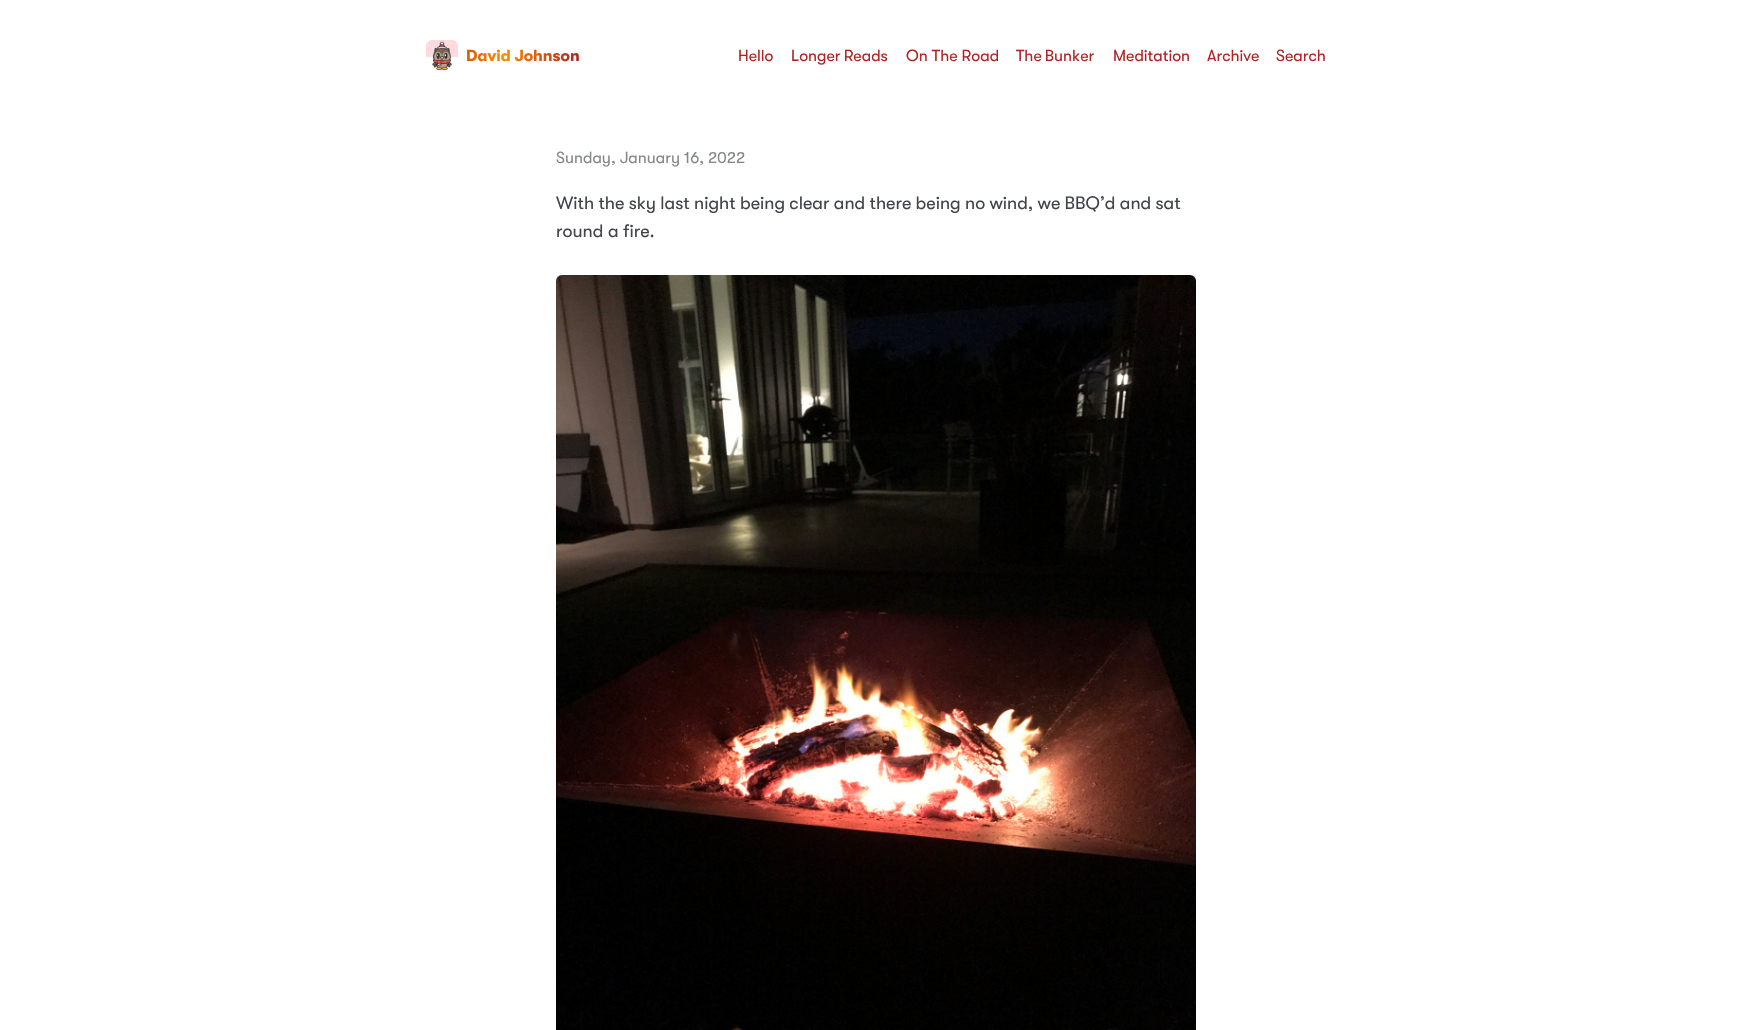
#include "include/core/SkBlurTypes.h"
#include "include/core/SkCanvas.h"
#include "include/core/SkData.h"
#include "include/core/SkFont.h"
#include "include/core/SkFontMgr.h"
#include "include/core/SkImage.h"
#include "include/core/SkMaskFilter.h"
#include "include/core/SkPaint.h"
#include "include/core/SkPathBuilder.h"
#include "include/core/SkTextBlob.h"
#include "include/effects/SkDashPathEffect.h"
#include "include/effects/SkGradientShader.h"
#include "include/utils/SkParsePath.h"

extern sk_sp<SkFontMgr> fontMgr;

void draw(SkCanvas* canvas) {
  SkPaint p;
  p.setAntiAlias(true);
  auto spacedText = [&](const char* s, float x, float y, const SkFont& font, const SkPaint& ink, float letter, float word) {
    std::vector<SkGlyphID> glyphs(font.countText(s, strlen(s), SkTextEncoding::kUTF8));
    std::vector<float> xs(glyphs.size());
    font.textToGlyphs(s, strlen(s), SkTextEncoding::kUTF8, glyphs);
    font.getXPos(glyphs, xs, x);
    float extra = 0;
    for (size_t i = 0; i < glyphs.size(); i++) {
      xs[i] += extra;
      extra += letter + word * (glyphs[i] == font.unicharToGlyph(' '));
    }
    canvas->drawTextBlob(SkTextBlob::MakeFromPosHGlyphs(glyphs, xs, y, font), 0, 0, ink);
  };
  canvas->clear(SK_ColorWHITE);
  canvas->drawImageRect(SkImages::DeferredFromEncodedData(SkData::MakeFromFileName("images/1.png")), SkRect::MakeLTRB(426, 40, 458, 71), SkSamplingOptions());
  canvas->drawImageRect(SkImages::DeferredFromEncodedData(SkData::MakeFromFileName("images/2.png")), SkRect::MakeLTRB(556, 275, 1196, 1030), SkSamplingOptions());
  SkFont font1(fontMgr->matchFamilyStyle("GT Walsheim", SkFontStyle::Bold()), 16);
  font1.setSubpixel(true);
  {
    const SkColor colors[] = {SkColorSetRGB(178, 34, 34), SkColorSetRGB(255, 140, 0), SkColorSetRGB(178, 34, 34)};
    const float stops[] = {0, 0.5f, 1};
    const SkPoint ends[] = {{426, 56}, {580, 56}};
    p.setShader(SkGradientShader::MakeLinear(ends, colors, stops, 3, SkTileMode::kClamp));
    p.setAlpha(255);
  }
  canvas->drawString("David Johnson", 466, 61, font1, p);
  SkFont font2(fontMgr->matchFamilyStyle("GT Walsheim", SkFontStyle::Normal()), 16);
  font2.setSubpixel(true);
  p.setShader(nullptr);
  p.setColor(SkColorSetRGB(178, 34, 34));
  canvas->drawString("Hello", 738, 61, font2, p);
  spacedText("Longer Reads", 791, 61, font2, p, 0, -1);
  canvas->drawString("On The Road", 906, 61, font2, p);
  spacedText("The Bunker", 1016, 61, font2, p, 0, -1);
  canvas->drawString("Meditation", 1113, 61, font2, p);
  canvas->drawString("Archive", 1207, 61, font2, p);
  canvas->drawString("Search", 1276, 61, font2, p);
  p.setColor(SkColorSetRGB(132, 134, 139));
  canvas->drawString("Sunday, January 16, 2022", 556, 163, font2, p);
  SkFont font3(fontMgr->matchFamilyStyle("GT Walsheim", SkFontStyle::Normal()), 18);
  font3.setSubpixel(true);
  p.setColor(SkColorSetRGB(66, 68, 74));
  spacedText("With the sky last night being clear and there being no wind, we BBQ’d and sat", 556, 209, font3, p, 0, -0.25f);
  canvas->drawString("round a fire.", 556, 237, font3, p);
}
